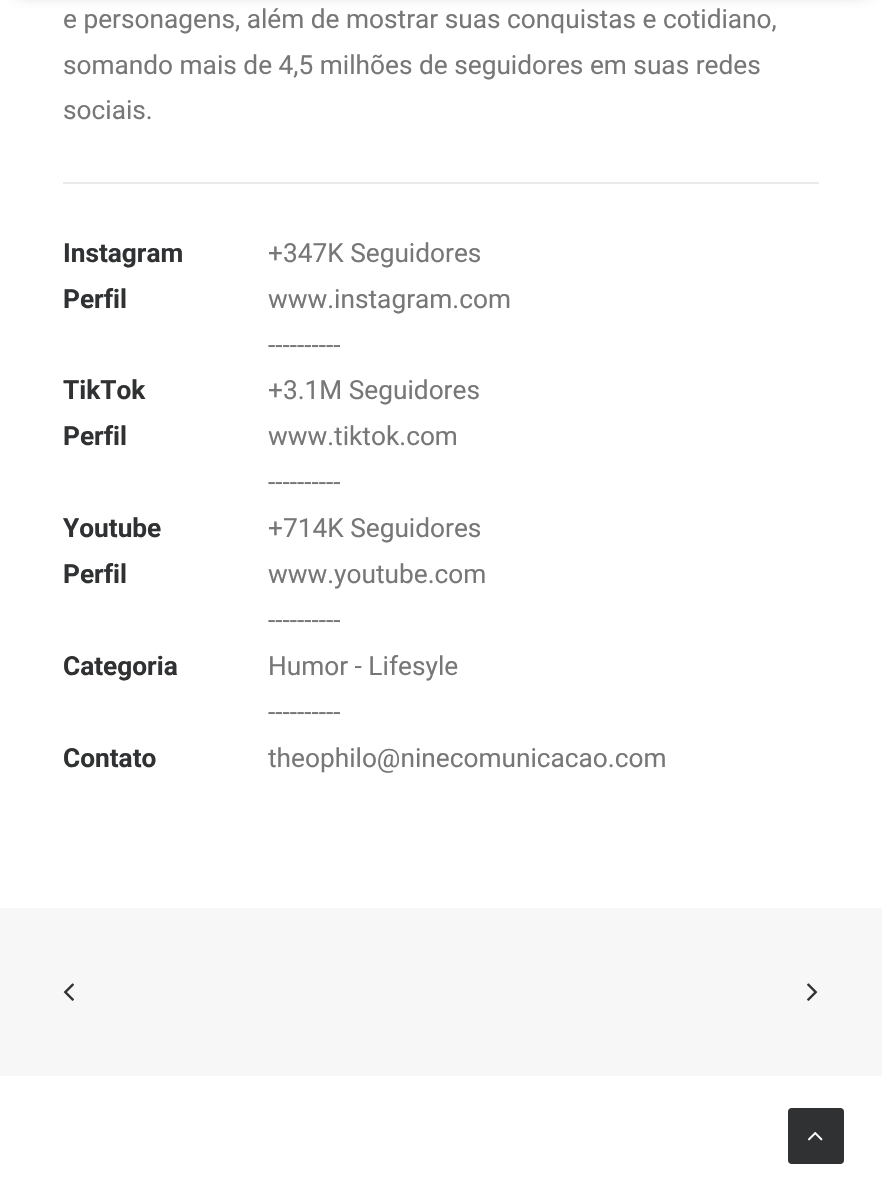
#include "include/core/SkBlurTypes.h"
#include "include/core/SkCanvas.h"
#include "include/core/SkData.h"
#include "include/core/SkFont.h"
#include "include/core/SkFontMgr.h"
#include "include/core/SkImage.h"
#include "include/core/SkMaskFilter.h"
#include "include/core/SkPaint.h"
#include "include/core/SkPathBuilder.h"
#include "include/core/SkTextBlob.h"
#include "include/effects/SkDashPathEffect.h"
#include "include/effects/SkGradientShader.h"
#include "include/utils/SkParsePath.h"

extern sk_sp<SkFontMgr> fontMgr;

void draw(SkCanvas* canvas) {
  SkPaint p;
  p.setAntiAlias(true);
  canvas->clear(SK_ColorWHITE);
  p.setColor(SkColorSetARGB(153, 0, 0, 0));
  p.setMaskFilter(SkMaskFilter::MakeBlur(kNormal_SkBlurStyle, 9));
  canvas->drawRect(SkRect::MakeLTRB(18, -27, 865, -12), p);
  p.setMaskFilter(nullptr);
  p.setColor(SkColorSetRGB(234, 234, 234));
  canvas->drawRect(SkRect::MakeLTRB(63, 182, 819, 184), p);
  p.setColor(SkColorSetRGB(247, 247, 247));
  canvas->drawRect(SkRect::MakeLTRB(0, 908, 882, 1076), p);
  canvas->drawImageRect(SkImages::DeferredFromEncodedData(SkData::MakeFromFileName("images/1.png")), SkRect::MakeLTRB(63, 983, 74, 1001), SkSamplingOptions());
  canvas->drawImageRect(SkImages::DeferredFromEncodedData(SkData::MakeFromFileName("images/2.png")), SkRect::MakeLTRB(807, 983, 818, 1001), SkSamplingOptions());
  p.setColor(SkColorSetRGB(48, 49, 51));
  canvas->drawRoundRect(SkRect::MakeLTRB(789, 1109, 843, 1163), 3, 3, p);
  p.setStyle(SkPaint::kStroke_Style);
  p.setStrokeWidth(2);
  canvas->drawRoundRect(SkRect::MakeLTRB(789, 1109, 843, 1163), 3, 3, p);
  canvas->drawImageRect(SkImages::DeferredFromEncodedData(SkData::MakeFromFileName("images/3.png")), SkRect::MakeLTRB(807, 1131, 823, 1141), SkSamplingOptions());
  SkFont font1(fontMgr->matchFamilyStyle("Roboto", SkFontStyle::Normal()), 26.25f);
  font1.setSubpixel(true);
  p.setStyle(SkPaint::kFill_Style);
  p.setColor(SkColorSetRGB(119, 119, 119));
  canvas->drawString("e personagens, além de mostrar suas conquistas e cotidiano,", 63, 28, font1, p);
  canvas->drawString("somando mais de 4,5 milhões de seguidores em suas redes", 63, 74, font1, p);
  canvas->drawString("sociais.", 63, 119, font1, p);
  SkFont font2(fontMgr->matchFamilyStyle("Roboto", SkFontStyle::Bold()), 26.25f);
  font2.setSubpixel(true);
  p.setColor(SkColorSetRGB(48, 49, 51));
  canvas->drawString("Instagram", 63, 262, font2, p);
  p.setColor(SkColorSetRGB(119, 119, 119));
  canvas->drawString("+347K Seguidores", 268, 262, font1, p);
  p.setColor(SkColorSetRGB(48, 49, 51));
  canvas->drawString("Perfil", 63, 308, font2, p);
  p.setColor(SkColorSetRGB(119, 119, 119));
  canvas->drawString("www.instagram.com", 268, 308, font1, p);
  canvas->drawString("----------", 268, 354, font1, p);
  p.setColor(SkColorSetRGB(48, 49, 51));
  canvas->drawString("TikTok", 63, 399, font2, p);
  p.setColor(SkColorSetRGB(119, 119, 119));
  canvas->drawString("+3.1M Seguidores", 268, 399, font1, p);
  p.setColor(SkColorSetRGB(48, 49, 51));
  canvas->drawString("Perfil", 63, 445, font2, p);
  p.setColor(SkColorSetRGB(119, 119, 119));
  canvas->drawString("www.tiktok.com", 268, 445, font1, p);
  canvas->drawString("----------", 268, 491, font1, p);
  p.setColor(SkColorSetRGB(48, 49, 51));
  canvas->drawString("Youtube", 63, 537, font2, p);
  p.setColor(SkColorSetRGB(119, 119, 119));
  canvas->drawString("+714K Seguidores", 268, 537, font1, p);
  p.setColor(SkColorSetRGB(48, 49, 51));
  canvas->drawString("Perfil", 63, 583, font2, p);
  p.setColor(SkColorSetRGB(119, 119, 119));
  canvas->drawString("www.youtube.com", 268, 583, font1, p);
  canvas->drawString("----------", 268, 629, font1, p);
  p.setColor(SkColorSetRGB(48, 49, 51));
  canvas->drawString("Categoria", 63, 675, font2, p);
  p.setColor(SkColorSetRGB(119, 119, 119));
  canvas->drawString("Humor - Lifesyle", 268, 675, font1, p);
  canvas->drawString("----------", 268, 721, font1, p);
  p.setColor(SkColorSetRGB(48, 49, 51));
  canvas->drawString("Contato", 63, 767, font2, p);
  p.setColor(SkColorSetRGB(119, 119, 119));
  canvas->drawString("theophilo@ninecomunicacao.com", 268, 767, font1, p);
}
